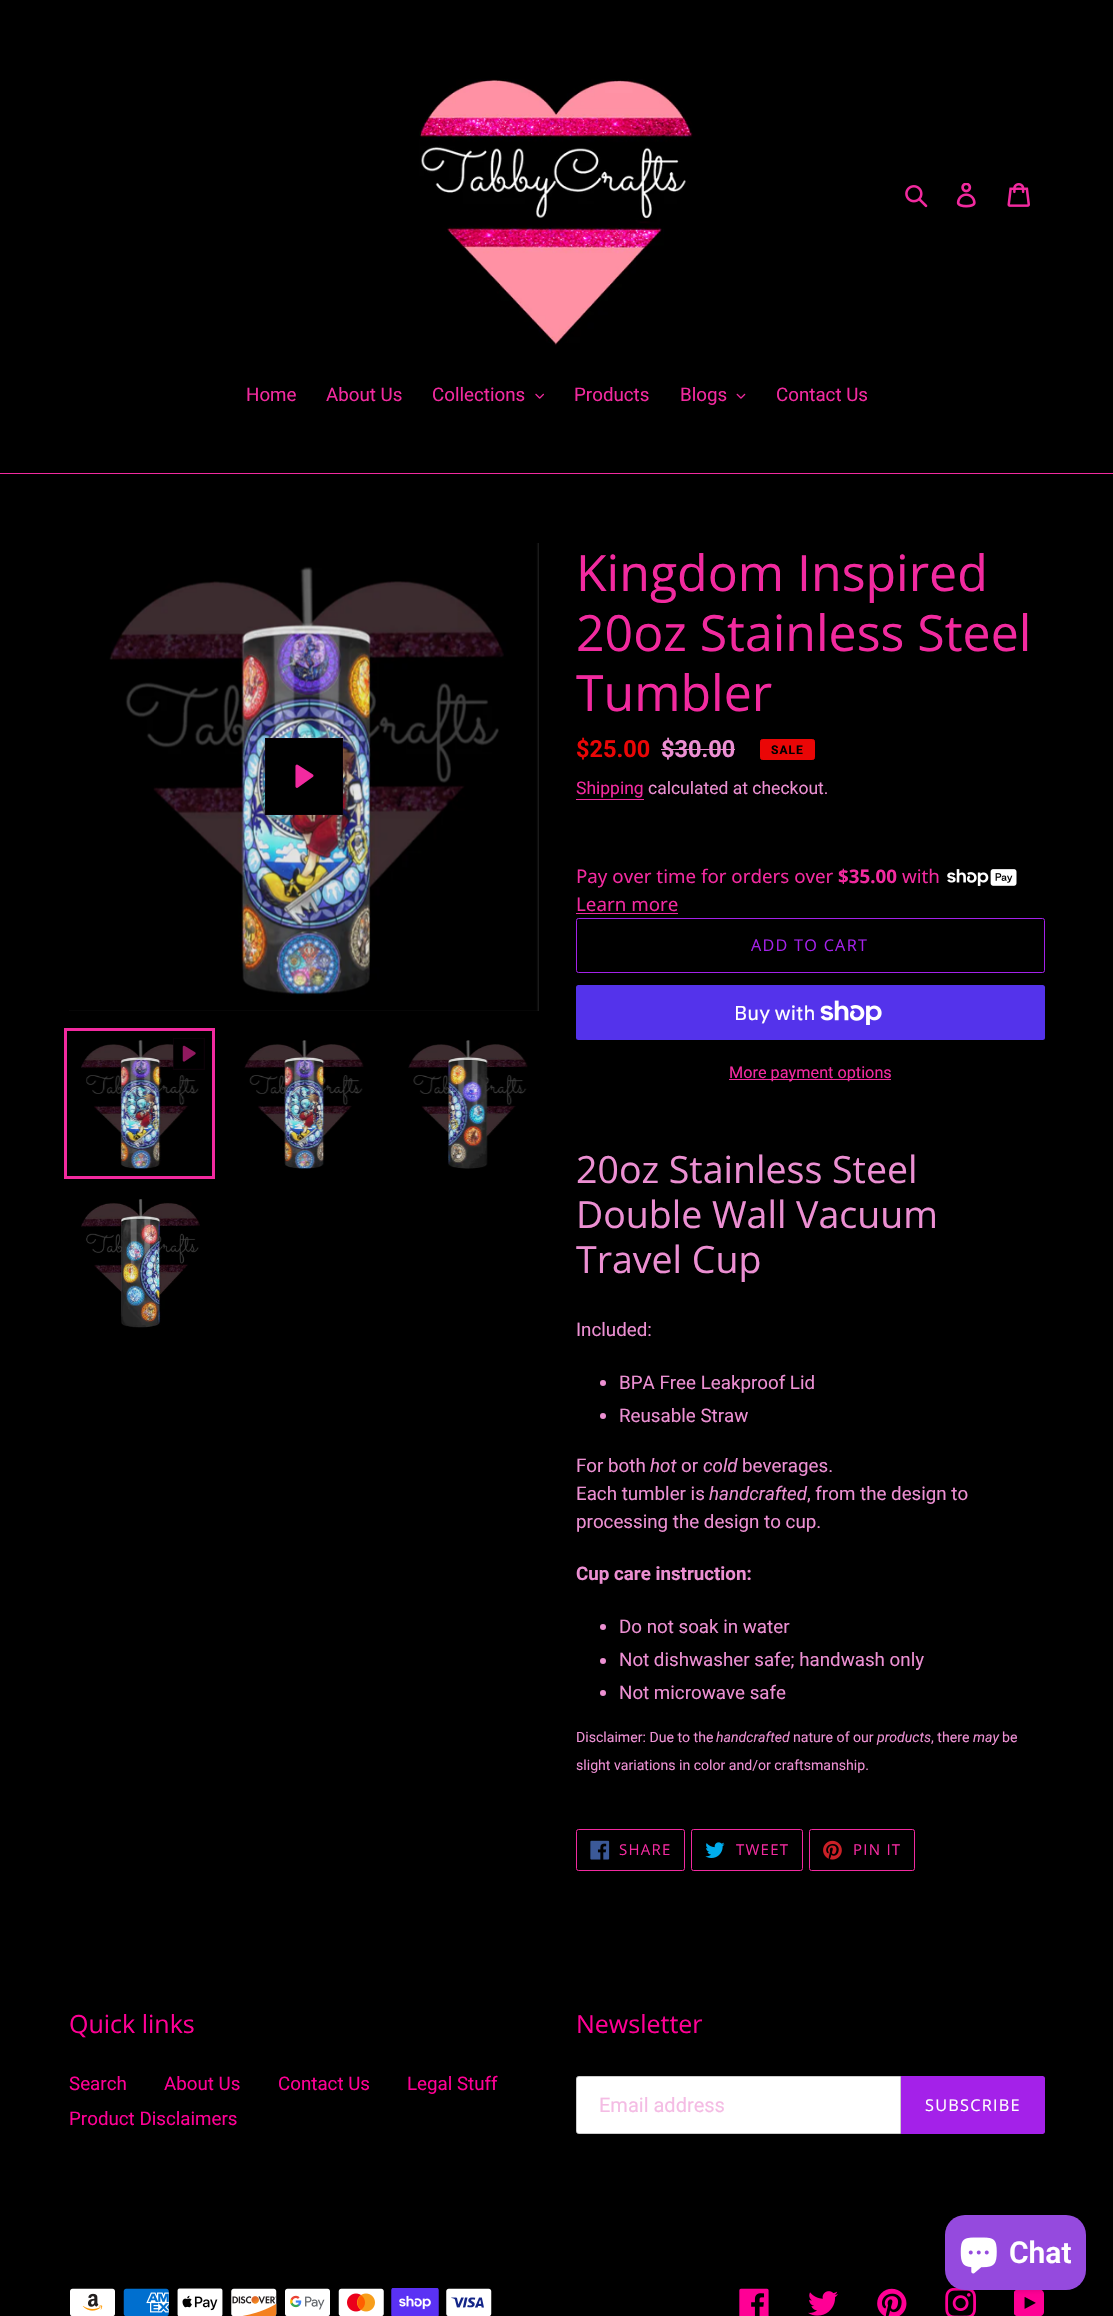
#include "include/core/SkBlurTypes.h"
#include "include/core/SkCanvas.h"
#include "include/core/SkData.h"
#include "include/core/SkFont.h"
#include "include/core/SkFontMgr.h"
#include "include/core/SkImage.h"
#include "include/core/SkMaskFilter.h"
#include "include/core/SkPaint.h"
#include "include/core/SkPathBuilder.h"
#include "include/core/SkTextBlob.h"
#include "include/effects/SkDashPathEffect.h"
#include "include/effects/SkGradientShader.h"
#include "include/utils/SkParsePath.h"

extern sk_sp<SkFontMgr> fontMgr;

void draw(SkCanvas* canvas) {
  SkPaint p;
  p.setAntiAlias(true);
  auto spacedText = [&](const char* s, float x, float y, const SkFont& font, const SkPaint& ink, float letter, float word) {
    std::vector<SkGlyphID> glyphs(font.countText(s, strlen(s), SkTextEncoding::kUTF8));
    std::vector<float> xs(glyphs.size());
    font.textToGlyphs(s, strlen(s), SkTextEncoding::kUTF8, glyphs);
    font.getXPos(glyphs, xs, x);
    float extra = 0;
    for (size_t i = 0; i < glyphs.size(); i++) {
      xs[i] += extra;
      extra += letter + word * (glyphs[i] == font.unicharToGlyph(' '));
    }
    canvas->drawTextBlob(SkTextBlob::MakeFromPosHGlyphs(glyphs, xs, y, font), 0, 0, ink);
  };
  canvas->clear(SK_ColorBLACK);
  canvas->drawImageRect(SkImages::DeferredFromEncodedData(SkData::MakeFromFileName("images/1.png")), SkRect::MakeLTRB(419, 79, 693, 346), SkSamplingOptions());
  canvas->drawImageRect(SkImages::DeferredFromEncodedData(SkData::MakeFromFileName("images/2.png")), SkRect::MakeLTRB(905, 185, 928, 208), SkSamplingOptions());
  canvas->drawImageRect(SkImages::DeferredFromEncodedData(SkData::MakeFromFileName("images/3.png")), SkRect::MakeLTRB(956, 183, 976, 208), SkSamplingOptions());
  canvas->drawImageRect(SkImages::DeferredFromEncodedData(SkData::MakeFromFileName("images/4.png")), SkRect::MakeLTRB(1007, 183, 1030, 207), SkSamplingOptions());
  p.setColor(SkColorSetRGB(242, 42, 159));
  canvas->drawRect(SkRect::MakeLTRB(0, 473, 1113, 474), p);
  canvas->drawImageRect(SkImages::DeferredFromEncodedData(SkData::MakeFromFileName("images/5.png")), SkRect::MakeLTRB(535, 393, 544, 399), SkSamplingOptions());
  canvas->drawImageRect(SkImages::DeferredFromEncodedData(SkData::MakeFromFileName("images/6.png")), SkRect::MakeLTRB(736, 393, 746, 399), SkSamplingOptions());
  p.setColor(SkColorSetRGB(26, 26, 26));
  canvas->drawRect(SkRect::MakeLTRB(69, 543, 539, 1011), p);
  canvas->drawImageRect(SkImages::DeferredFromEncodedData(SkData::MakeFromFileName("images/7.png")), SkRect::MakeLTRB(69, 543, 538, 1011), SkSamplingOptions());
  p.setColor(SK_ColorBLACK);
  canvas->drawRect(SkRect::MakeLTRB(265.5f, 738.5f, 342.5f, 814.5f), p);
  p.setStyle(SkPaint::kStroke_Style);
  p.setStrokeWidth(1);
  p.setColor(SkColorSetRGB(12, 2, 8));
  canvas->drawRect(SkRect::MakeLTRB(265.5f, 738.5f, 342.5f, 814.5f), p);
  canvas->drawImageRect(SkImages::DeferredFromEncodedData(SkData::MakeFromFileName("images/8.png")), SkRect::MakeLTRB(295, 764, 314, 788), SkSamplingOptions());
  p.setStrokeWidth(3);
  p.setColor(SkColorSetRGB(242, 42, 159));
  canvas->drawRect(SkRect::MakeLTRB(65.5f, 1029.5f, 213.5f, 1177.5f), p);
  canvas->drawImageRect(SkImages::DeferredFromEncodedData(SkData::MakeFromFileName("images/10.png")), SkRect::MakeLTRB(81, 1040, 200, 1169), SkSamplingOptions());
  canvas->drawImageRect(SkImages::DeferredFromEncodedData(SkData::MakeFromFileName("images/9.png")), SkRect::MakeLTRB(173, 1038, 205, 1070), SkSamplingOptions());
  canvas->drawImageRect(SkImages::DeferredFromEncodedData(SkData::MakeFromFileName("images/11.png")), SkRect::MakeLTRB(244, 1040, 364, 1169), SkSamplingOptions());
  canvas->drawImageRect(SkImages::DeferredFromEncodedData(SkData::MakeFromFileName("images/12.png")), SkRect::MakeLTRB(408, 1040, 528, 1169), SkSamplingOptions());
  canvas->drawImageRect(SkImages::DeferredFromEncodedData(SkData::MakeFromFileName("images/13.png")), SkRect::MakeLTRB(81, 1199, 200, 1328), SkSamplingOptions());
  p.setStyle(SkPaint::kFill_Style);
  p.setColor(SkColorSetRGB(236, 143, 210));
  canvas->drawRect(SkRect::MakeLTRB(661, 749, 735, 750), p);
  p.setColor(SkColorSetRGB(234, 6, 6));
  canvas->drawRoundRect(SkRect::MakeLTRB(760.5f, 739.5f, 814.5f, 759.5f), 2, 2, p);
  p.setStyle(SkPaint::kStroke_Style);
  p.setStrokeWidth(1);
  canvas->drawRoundRect(SkRect::MakeLTRB(760.5f, 739.5f, 814.5f, 759.5f), 2, 2, p);
  p.setStyle(SkPaint::kFill_Style);
  p.setColor(SkColorSetRGB(242, 42, 159));
  canvas->drawRect(SkRect::MakeLTRB(576, 799, 644, 800), p);
  canvas->drawImageRect(SkImages::DeferredFromEncodedData(SkData::MakeFromFileName("images/14.png")), SkRect::MakeLTRB(947, 869, 1017, 886), SkSamplingOptions());
  canvas->drawRect(SkRect::MakeLTRB(576, 913, 678, 914), p);
  p.setStyle(SkPaint::kStroke_Style);
  p.setColor(SkColorSetRGB(164, 33, 233));
  canvas->drawRoundRect(SkRect::MakeLTRB(576.5f, 918.5f, 1044.5f, 972.5f), 2, 2, p);
  p.setStyle(SkPaint::kFill_Style);
  p.setColor(SkColorSetRGB(84, 51, 235));
  canvas->drawRoundRect(SkRect::MakeLTRB(576, 985, 1045, 1040), 2.5f, 2.5f, p);
  canvas->drawImageRect(SkImages::DeferredFromEncodedData(SkData::MakeFromFileName("images/15.png")), SkRect::MakeLTRB(820, 1000, 882, 1025), SkSamplingOptions());
  p.setColor(SkColorSetRGB(242, 42, 159));
  canvas->drawRect(SkRect::MakeLTRB(729, 1079, 891, 1080), p);
  p.setColor(SkColorSetRGB(236, 143, 210));
  canvas->drawCircle(603, 1383, 3, p);
  canvas->drawCircle(603, 1416, 3, p);
  canvas->drawCircle(603, 1627, 3, p);
  canvas->drawCircle(603, 1661, 3, p);
  canvas->drawCircle(603, 1693, 3, p);
  p.setStyle(SkPaint::kStroke_Style);
  p.setColor(SkColorSetRGB(242, 42, 159));
  canvas->drawRoundRect(SkRect::MakeLTRB(576.5f, 1829.5f, 684.5f, 1870.5f), 2, 2, p);
  canvas->drawImageRect(SkImages::DeferredFromEncodedData(SkData::MakeFromFileName("images/16.png")), SkRect::MakeLTRB(590, 1840, 610, 1860), SkSamplingOptions());
  canvas->drawRoundRect(SkRect::MakeLTRB(691.5f, 1829.5f, 802.5f, 1870.5f), 2, 2, p);
  canvas->drawImageRect(SkImages::DeferredFromEncodedData(SkData::MakeFromFileName("images/17.png")), SkRect::MakeLTRB(705, 1842, 725, 1858), SkSamplingOptions());
  canvas->drawRoundRect(SkRect::MakeLTRB(809.5f, 1829.5f, 914.5f, 1870.5f), 2, 2, p);
  canvas->drawImageRect(SkImages::DeferredFromEncodedData(SkData::MakeFromFileName("images/18.png")), SkRect::MakeLTRB(823, 1840, 842, 1860), SkSamplingOptions());
  p.setStyle(SkPaint::kFill_Style);
  p.setColor(SK_ColorWHITE);
  canvas->drawPath(SkPathBuilder().moveTo(578.5f, 2076.5f).lineTo(900.5f, 2076.5f).lineTo(900.5f, 2133.5f).lineTo(578.5f, 2133.5f).cubicTo(577.5f, 2133.5f, 576.5f, 2132.5f, 576.5f, 2131.5f).lineTo(576.5f, 2078.5f).cubicTo(576.5f, 2077.5f, 577.5f, 2076.5f, 578.5f, 2076.5f).close().detach(), p);
  p.setStyle(SkPaint::kStroke_Style);
  p.setColor(SkColorSetRGB(204, 204, 204));
  canvas->drawPath(SkPathBuilder().moveTo(578.5f, 2076.5f).lineTo(900.5f, 2076.5f).lineTo(900.5f, 2133.5f).lineTo(578.5f, 2133.5f).cubicTo(577.5f, 2133.5f, 576.5f, 2132.5f, 576.5f, 2131.5f).lineTo(576.5f, 2078.5f).cubicTo(576.5f, 2077.5f, 577.5f, 2076.5f, 578.5f, 2076.5f).close().detach(), p);
  p.setStyle(SkPaint::kFill_Style);
  p.setColor(SkColorSetRGB(164, 33, 233));
  canvas->drawPath(SkPathBuilder().moveTo(901, 2076).lineTo(1042.5f, 2076).cubicTo(1044, 2076, 1045, 2077, 1045, 2078.5f).lineTo(1045, 2131.5f).cubicTo(1045, 2133, 1044, 2134, 1042.5f, 2134).lineTo(901, 2134).close().detach(), p);
  canvas->drawImageRect(SkImages::DeferredFromEncodedData(SkData::MakeFromFileName("images/19.png")), SkRect::MakeLTRB(70, 2288, 115, 2316), SkSamplingOptions());
  canvas->drawImageRect(SkImages::DeferredFromEncodedData(SkData::MakeFromFileName("images/20.png")), SkRect::MakeLTRB(123, 2288, 169, 2316), SkSamplingOptions());
  canvas->drawImageRect(SkImages::DeferredFromEncodedData(SkData::MakeFromFileName("images/21.png")), SkRect::MakeLTRB(177, 2288, 223, 2316), SkSamplingOptions());
  canvas->drawImageRect(SkImages::DeferredFromEncodedData(SkData::MakeFromFileName("images/22.png")), SkRect::MakeLTRB(231, 2288, 277, 2316), SkSamplingOptions());
  canvas->drawImageRect(SkImages::DeferredFromEncodedData(SkData::MakeFromFileName("images/23.png")), SkRect::MakeLTRB(285, 2288, 330, 2316), SkSamplingOptions());
  canvas->drawImageRect(SkImages::DeferredFromEncodedData(SkData::MakeFromFileName("images/24.png")), SkRect::MakeLTRB(338, 2288, 384, 2316), SkSamplingOptions());
  canvas->drawImageRect(SkImages::DeferredFromEncodedData(SkData::MakeFromFileName("images/25.png")), SkRect::MakeLTRB(391, 2288, 439, 2316), SkSamplingOptions());
  canvas->drawImageRect(SkImages::DeferredFromEncodedData(SkData::MakeFromFileName("images/26.png")), SkRect::MakeLTRB(446, 2288, 492, 2316), SkSamplingOptions());
  canvas->drawImageRect(SkImages::DeferredFromEncodedData(SkData::MakeFromFileName("images/27.png")), SkRect::MakeLTRB(739, 2288, 769, 2316), SkSamplingOptions());
  canvas->drawImageRect(SkImages::DeferredFromEncodedData(SkData::MakeFromFileName("images/28.png")), SkRect::MakeLTRB(808, 2291, 838, 2316), SkSamplingOptions());
  canvas->drawImageRect(SkImages::DeferredFromEncodedData(SkData::MakeFromFileName("images/29.png")), SkRect::MakeLTRB(877, 2288, 907, 2316), SkSamplingOptions());
  canvas->drawImageRect(SkImages::DeferredFromEncodedData(SkData::MakeFromFileName("images/30.png")), SkRect::MakeLTRB(945, 2288, 976, 2316), SkSamplingOptions());
  canvas->drawImageRect(SkImages::DeferredFromEncodedData(SkData::MakeFromFileName("images/31.png")), SkRect::MakeLTRB(1014, 2290, 1044, 2316), SkSamplingOptions());
  p.setColor(SkColorSetARGB(38, 0, 0, 0));
  p.setMaskFilter(SkMaskFilter::MakeBlur(kNormal_SkBlurStyle, 3));
  canvas->drawRoundRect(SkRect::MakeLTRB(945, 2215, 1086, 2290), 20, 20, p);
  p.setMaskFilter(nullptr);
  p.setColor(SkColorSetRGB(149, 74, 222));
  canvas->drawRoundRect(SkRect::MakeLTRB(945, 2215, 1086, 2290), 20, 20, p);
  canvas->drawImageRect(SkImages::DeferredFromEncodedData(SkData::MakeFromFileName("images/32.png")), SkRect::MakeLTRB(960, 2237, 997, 2274), SkSamplingOptions());
  SkFont font1(fontMgr->matchFamilyStyle("Roboto", SkFontStyle::Normal()), 18.75f);
  font1.setSubpixel(true);
  p.setColor(SkColorSetRGB(242, 42, 159));
  canvas->drawString("Home", 246, 401, font1, p);
  canvas->drawString("About Us", 326, 401, font1, p);
  canvas->drawString("Collections", 432, 401, font1, p);
  canvas->drawString("Products", 574, 401, font1, p);
  canvas->drawString("Blogs", 680, 401, font1, p);
  canvas->drawString("Contact Us", 776, 401, font1, p);
  SkFont font2(fontMgr->matchFamilyStyle("Open Sans", SkFontStyle::Normal()), 50);
  font2.setSubpixel(true);
  canvas->drawString("Kingdom Inspired", 576, 591, font2, p);
  canvas->drawString("20oz Stainless Steel", 576, 651, font2, p);
  canvas->drawString("Tumbler", 576, 711, font2, p);
  SkFont font3(fontMgr->matchFamilyStyle("Roboto", SkFontStyle::Bold()), 23.5f);
  font3.setSubpixel(true);
  p.setColor(SkColorSetRGB(234, 6, 6));
  canvas->drawString("$25.00", 576, 757, font3, p);
  p.setColor(SkColorSetRGB(236, 143, 210));
  canvas->drawString("$30.00", 661, 757, font3, p);
  SkFont font4(fontMgr->matchFamilyStyle("Roboto", SkFontStyle::Bold()), 12);
  font4.setSubpixel(true);
  p.setColor(SK_ColorBLACK);
  spacedText("SALE", 771, 754, font4, p, 1, 0);
  SkFont font5(fontMgr->matchFamilyStyle("Roboto", SkFontStyle::Normal()), 17.5f);
  font5.setSubpixel(true);
  p.setColor(SkColorSetRGB(242, 42, 159));
  canvas->drawString("Shipping", 576, 794, font5, p);
  p.setColor(SkColorSetRGB(236, 143, 210));
  canvas->drawString("calculated at checkout.", 648, 794, font5, p);
  SkFont font6(fontMgr->matchFamilyStyle("Noto Sans", SkFontStyle::Normal()), 18.75f);
  font6.setSubpixel(true);
  p.setColor(SkColorSetRGB(242, 42, 159));
  canvas->drawString("Pay over time for orders over", 576, 883, font6, p);
  SkFont font7(fontMgr->matchFamilyStyle("Noto Sans", SkFontStyle::Bold()), 18.75f);
  font7.setSubpixel(true);
  canvas->drawString("$35.00", 838, 883, font7, p);
  canvas->drawString("with", 902, 883, font6, p);
  canvas->drawString("Learn more", 576, 911, font6, p);
  SkFont font8(fontMgr->matchFamilyStyle("Open Sans", SkFontStyle::Normal()), 16.25f);
  font8.setSubpixel(true);
  p.setColor(SkColorSetRGB(164, 33, 233));
  spacedText("ADD TO CART", 751, 951, font8, p, 1.25f, 0);
  SkFont font9(fontMgr->matchFamilyStyle("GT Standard", SkFontStyle::Normal()), 20);
  font9.setSubpixel(true);
  p.setColor(SK_ColorWHITE);
  canvas->drawString("Buy with", 734, 1020, font9, p);
  SkFont font10(fontMgr->matchFamilyStyle("Roboto", SkFontStyle::Normal()), 16.25f);
  font10.setSubpixel(true);
  p.setColor(SkColorSetRGB(242, 42, 159));
  canvas->drawString("More payment options", 729, 1078, font10, p);
  SkFont font11(fontMgr->matchFamilyStyle("Open Sans", SkFontStyle::Normal()), 37.5f);
  font11.setSubpixel(true);
  p.setColor(SkColorSetRGB(236, 143, 210));
  canvas->drawString("20oz Stainless Steel", 576, 1183, font11, p);
  canvas->drawString("Double Wall Vacuum", 576, 1228, font11, p);
  canvas->drawString("Travel Cup", 576, 1273, font11, p);
  canvas->drawString("Included:", 576, 1336, font1, p);
  canvas->drawString("BPA Free Leakproof Lid", 619, 1389, font1, p);
  canvas->drawString("Reusable Straw", 619, 1422, font1, p);
  canvas->drawString("For both", 576, 1472, font1, p);
  SkFont font12(fontMgr->matchFamilyStyle("Roboto", SkFontStyle::Italic()), 18.75f);
  font12.setSubpixel(true);
  canvas->drawString("hot", 650, 1472, font12, p);
  canvas->drawString("or", 681, 1472, font1, p);
  canvas->drawString("cold", 703, 1472, font12, p);
  canvas->drawString("beverages.", 742, 1472, font1, p);
  canvas->drawString("Each tumbler is", 576, 1500, font1, p);
  canvas->drawString("handcrafted", 709, 1500, font12, p);
  canvas->drawString(", from the design to", 807, 1500, font1, p);
  canvas->drawString("processing the design to cup.", 576, 1528, font1, p);
  SkFont font13(fontMgr->matchFamilyStyle("Roboto", SkFontStyle::Bold()), 18.75f);
  font13.setSubpixel(true);
  canvas->drawString("Cup care instruction:", 576, 1580, font13, p);
  canvas->drawString("Do not soak in water", 619, 1633, font1, p);
  canvas->drawString("Not dishwasher safe; handwash only", 619, 1666, font1, p);
  canvas->drawString("Not microwave safe", 619, 1699, font1, p);
  SkFont font14(fontMgr->matchFamilyStyle("Roboto", SkFontStyle::Normal()), 14.1f);
  font14.setSubpixel(true);
  canvas->drawString("Disclaimer: Due to the", 576, 1742, font14, p);
  SkFont font15(fontMgr->matchFamilyStyle("Roboto", SkFontStyle::Italic()), 14.1f);
  font15.setSubpixel(true);
  canvas->drawString("handcrafted", 716, 1742, font15, p);
  canvas->drawString("nature of our", 793, 1742, font14, p);
  canvas->drawString("products", 877, 1742, font15, p);
  canvas->drawString(", there", 931, 1742, font14, p);
  canvas->drawString("may", 973, 1742, font15, p);
  canvas->drawString("be", 1002, 1742, font14, p);
  canvas->drawString("slight variations in color and/or craftsmanship.", 576, 1770, font14, p);
  SkFont font16(fontMgr->matchFamilyStyle("Open Sans", SkFontStyle::Normal()), 15);
  font16.setSubpixel(true);
  p.setColor(SkColorSetRGB(242, 42, 159));
  spacedText("SHARE", 619, 1855, font16, p, 1.25f, 0);
  spacedText("TWEET", 736, 1855, font16, p, 1.25f, 0);
  spacedText("PIN IT", 853, 1855, font16, p, 1.25f, 0);
  SkFont font17(fontMgr->matchFamilyStyle("Open Sans", SkFontStyle::Normal()), 25);
  font17.setSubpixel(true);
  p.setColor(SkColorSetRGB(255, 0, 149));
  canvas->drawString("Quick links", 69, 2033, font17, p);
  canvas->drawString("Search", 69, 2090, font1, p);
  canvas->drawString("About Us", 164, 2090, font1, p);
  canvas->drawString("Contact Us", 278, 2090, font1, p);
  canvas->drawString("Legal Stuff", 407, 2090, font1, p);
  canvas->drawString("Product Disclaimers", 69, 2125, font1, p);
  canvas->drawString("Newsletter", 576, 2033, font17, p);
  SkFont font18(fontMgr->matchFamilyStyle("Roboto", SkFontStyle::Normal()), 20);
  font18.setSubpixel(true);
  p.setColor(SkColorSetRGB(244, 188, 228));
  canvas->drawString("Email address", 599, 2112, font18, p);
  p.setColor(SK_ColorWHITE);
  spacedText("SUBSCRIBE", 925, 2111, font8, p, 1.25f, 0);
  SkFont font19(fontMgr->matchFamilyStyle("Roboto", SkFontStyle(600, SkFontStyle::kNormal_Width, SkFontStyle::kUpright_Slant)), 30);
  font19.setSubpixel(true);
  canvas->drawString("Chat", 1009, 2263, font19, p);
}
